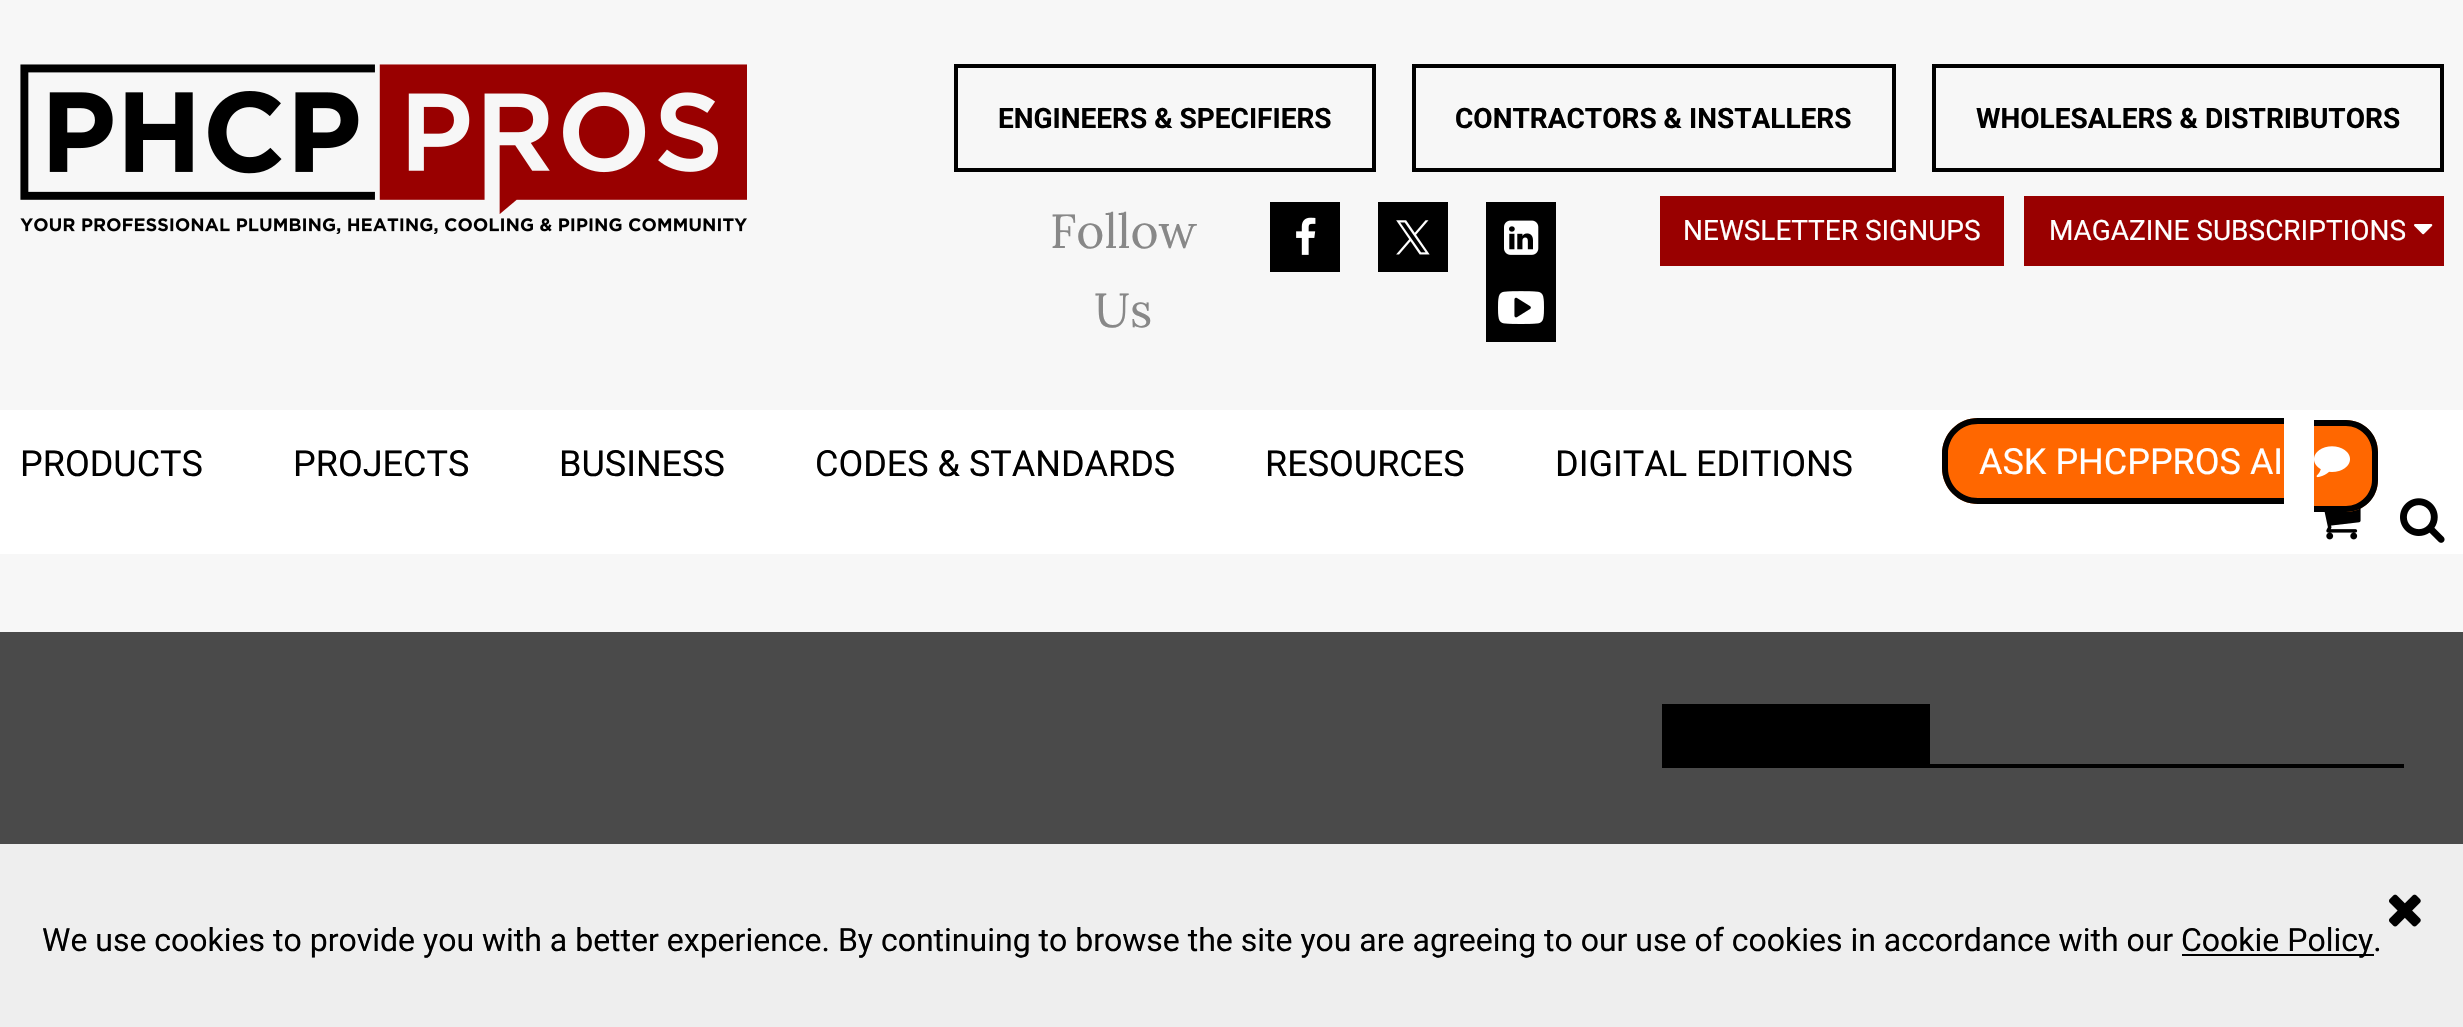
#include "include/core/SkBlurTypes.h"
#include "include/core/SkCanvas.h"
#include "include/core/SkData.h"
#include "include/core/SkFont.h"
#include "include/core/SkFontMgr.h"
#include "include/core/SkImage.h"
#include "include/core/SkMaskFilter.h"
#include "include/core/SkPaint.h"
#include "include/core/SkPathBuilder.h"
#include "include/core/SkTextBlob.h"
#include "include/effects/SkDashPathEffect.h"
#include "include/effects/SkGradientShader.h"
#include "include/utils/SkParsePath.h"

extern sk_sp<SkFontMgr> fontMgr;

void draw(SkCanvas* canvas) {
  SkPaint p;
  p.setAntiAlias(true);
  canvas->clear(SkColorSetRGB(247, 247, 247));
  canvas->drawImageRect(SkImages::DeferredFromEncodedData(SkData::MakeFromFileName("images/1.png")), SkRect::MakeLTRB(20, 64, 747, 234), SkSamplingOptions());
  p.setStyle(SkPaint::kStroke_Style);
  p.setStrokeWidth(4);
  p.setColor(SK_ColorBLACK);
  canvas->drawRect(SkRect::MakeLTRB(956, 66, 1374, 170), p);
  canvas->drawRect(SkRect::MakeLTRB(1414, 66, 1894, 170), p);
  canvas->drawRect(SkRect::MakeLTRB(1934, 66, 2442, 170), p);
  p.setStyle(SkPaint::kFill_Style);
  canvas->drawRect(SkRect::MakeLTRB(1270, 202, 1340, 272), p);
  canvas->drawImageRect(SkImages::DeferredFromEncodedData(SkData::MakeFromFileName("images/2.png")), SkRect::MakeLTRB(1296, 217, 1316, 255), SkSamplingOptions());
  canvas->drawRect(SkRect::MakeLTRB(1378, 202, 1448, 272), p);
  canvas->drawImageRect(SkImages::DeferredFromEncodedData(SkData::MakeFromFileName("images/3.png")), SkRect::MakeLTRB(1396, 220, 1430, 255), SkSamplingOptions());
  canvas->drawRect(SkRect::MakeLTRB(1486, 202, 1556, 342), p);
  canvas->drawImageRect(SkImages::DeferredFromEncodedData(SkData::MakeFromFileName("images/4.png")), SkRect::MakeLTRB(1504, 220, 1539, 255), SkSamplingOptions());
  canvas->drawImageRect(SkImages::DeferredFromEncodedData(SkData::MakeFromFileName("images/5.png")), SkRect::MakeLTRB(1498, 291, 1544, 324), SkSamplingOptions());
  p.setColor(SkColorSetRGB(153, 0, 0));
  canvas->drawRect(SkRect::MakeLTRB(1660, 196, 2004, 266), p);
  canvas->drawRect(SkRect::MakeLTRB(2024, 196, 2444, 266), p);
  canvas->drawImageRect(SkImages::DeferredFromEncodedData(SkData::MakeFromFileName("images/6.png")), SkRect::MakeLTRB(2414, 224, 2433, 235), SkSamplingOptions());
  p.setColor(SK_ColorWHITE);
  canvas->drawRect(SkRect::MakeLTRB(0, 410, 2463, 554), p);
  p.setColor(SkColorSetRGB(255, 103, 0));
  canvas->drawPath(SkPathBuilder().moveTo(1978, 418).lineTo(2284, 418).lineTo(2284, 504).lineTo(1978, 504).cubicTo(1958, 504, 1942, 488, 1942, 468).lineTo(1942, 454).cubicTo(1942, 434, 1958, 418, 1978, 418).close().detach(), p);
  p.setColor(SK_ColorBLACK);
  canvas->drawPath(SkPathBuilder(SkPathFillType::kEvenOdd).moveTo(1978, 418).lineTo(2284, 418).lineTo(2284, 504).lineTo(1978, 504).cubicTo(1958, 504, 1942, 488, 1942, 468).lineTo(1942, 454).cubicTo(1942, 434, 1958, 418, 1978, 418).close().moveTo(1978, 424).lineTo(2284, 424).lineTo(2284, 498).lineTo(1978, 498).cubicTo(1961, 498, 1948, 485, 1948, 468).lineTo(1948, 454).cubicTo(1948, 437, 1961, 424, 1978, 424).close().detach(), p);
  canvas->drawImageRect(SkImages::DeferredFromEncodedData(SkData::MakeFromFileName("images/8.png")), SkRect::MakeLTRB(2324, 508, 2361, 540), SkSamplingOptions());
  p.setColor(SkColorSetRGB(255, 103, 0));
  canvas->drawPath(SkPathBuilder().moveTo(2314, 420).lineTo(2346, 420).cubicTo(2363.5f, 420, 2378, 434.5f, 2378, 452).lineTo(2378, 480).cubicTo(2378, 497.5f, 2363.5f, 512, 2346, 512).lineTo(2314, 512).close().detach(), p);
  p.setColor(SK_ColorBLACK);
  canvas->drawPath(SkPathBuilder(SkPathFillType::kEvenOdd).moveTo(2314, 420).lineTo(2346, 420).cubicTo(2364, 420, 2378, 434, 2378, 452).lineTo(2378, 480).cubicTo(2378, 498, 2364, 512, 2346, 512).lineTo(2314, 512).close().moveTo(2314, 426).lineTo(2346, 426).cubicTo(2360, 426, 2372, 438, 2372, 452).lineTo(2372, 480).cubicTo(2372, 494, 2360, 506, 2346, 506).lineTo(2314, 506).close().detach(), p);
  canvas->drawImageRect(SkImages::DeferredFromEncodedData(SkData::MakeFromFileName("images/7.png")), SkRect::MakeLTRB(2314, 446, 2350, 478), SkSamplingOptions());
  canvas->drawImageRect(SkImages::DeferredFromEncodedData(SkData::MakeFromFileName("images/9.png")), SkRect::MakeLTRB(2400, 498, 2445, 543), SkSamplingOptions());
  canvas->drawRect(SkRect::MakeLTRB(1662, 704, 1930, 768), p);
  canvas->drawRect(SkRect::MakeLTRB(1930, 764, 2404, 768), p);
  p.setColor(SkColorSetARGB(179, 0, 0, 0));
  canvas->drawRect(SkRect::MakeLTRB(0, 632, 2463, 844), p);
  p.setColor(SkColorSetRGB(238, 238, 238));
  canvas->drawRect(SkRect::MakeLTRB(0, 844, 2463, 1027), p);
  canvas->drawImageRect(SkImages::DeferredFromEncodedData(SkData::MakeFromFileName("images/10.png")), SkRect::MakeLTRB(2389, 894, 2421, 927), SkSamplingOptions());
  p.setColor(SK_ColorBLACK);
  canvas->drawRect(SkRect::MakeLTRB(2182, 954, 2374, 956), p);
  SkFont font1(fontMgr->matchFamilyStyle("Roboto", SkFontStyle::Bold()), 28);
  font1.setSubpixel(true);
  canvas->drawString("ENGINEERS & SPECIFIERS", 998, 128, font1, p);
  canvas->drawString("CONTRACTORS & INSTALLERS", 1455, 128, font1, p);
  canvas->drawString("WHOLESALERS & DISTRIBUTORS", 1976, 128, font1, p);
  SkFont font2(fontMgr->matchFamilyStyle("Lora", SkFontStyle::Normal()), 48);
  font2.setSubpixel(true);
  p.setColor(SkColorSetRGB(136, 136, 136));
  canvas->drawString("Follow", 1050, 248, font2, p);
  canvas->drawString("Us", 1094, 327, font2, p);
  SkFont font3(fontMgr->matchFamilyStyle("Roboto", SkFontStyle::Normal()), 28);
  font3.setSubpixel(true);
  p.setColor(SK_ColorWHITE);
  canvas->drawString("NEWSLETTER SIGNUPS", 1683, 240, font3, p);
  canvas->drawString("MAGAZINE SUBSCRIPTIONS", 2049, 240, font3, p);
  SkFont font4(fontMgr->matchFamilyStyle("Roboto", SkFontStyle::Normal()), 36);
  font4.setSubpixel(true);
  p.setColor(SK_ColorBLACK);
  canvas->drawString("PRODUCTS", 20, 476, font4, p);
  canvas->drawString("PROJECTS", 293, 476, font4, p);
  canvas->drawString("BUSINESS", 559, 476, font4, p);
  canvas->drawString("CODES & STANDARDS", 815, 476, font4, p);
  canvas->drawString("RESOURCES", 1265, 476, font4, p);
  canvas->drawString("DIGITAL EDITIONS", 1555, 476, font4, p);
  p.setColor(SK_ColorWHITE);
  canvas->drawString("ASK PHCPPROS AI", 1979, 474, font4, p);
  SkFont font5(fontMgr->matchFamilyStyle("Roboto", SkFontStyle::Normal()), 32);
  font5.setSubpixel(true);
  p.setColor(SK_ColorBLACK);
  canvas->drawString("We use cookies to provide you with a better experience. By continuing to browse the site you are agreeing to our use of cookies in accordance with our", 42, 951, font5, p);
  canvas->drawString("Cookie Policy.", 2181, 951, font5, p);
}
